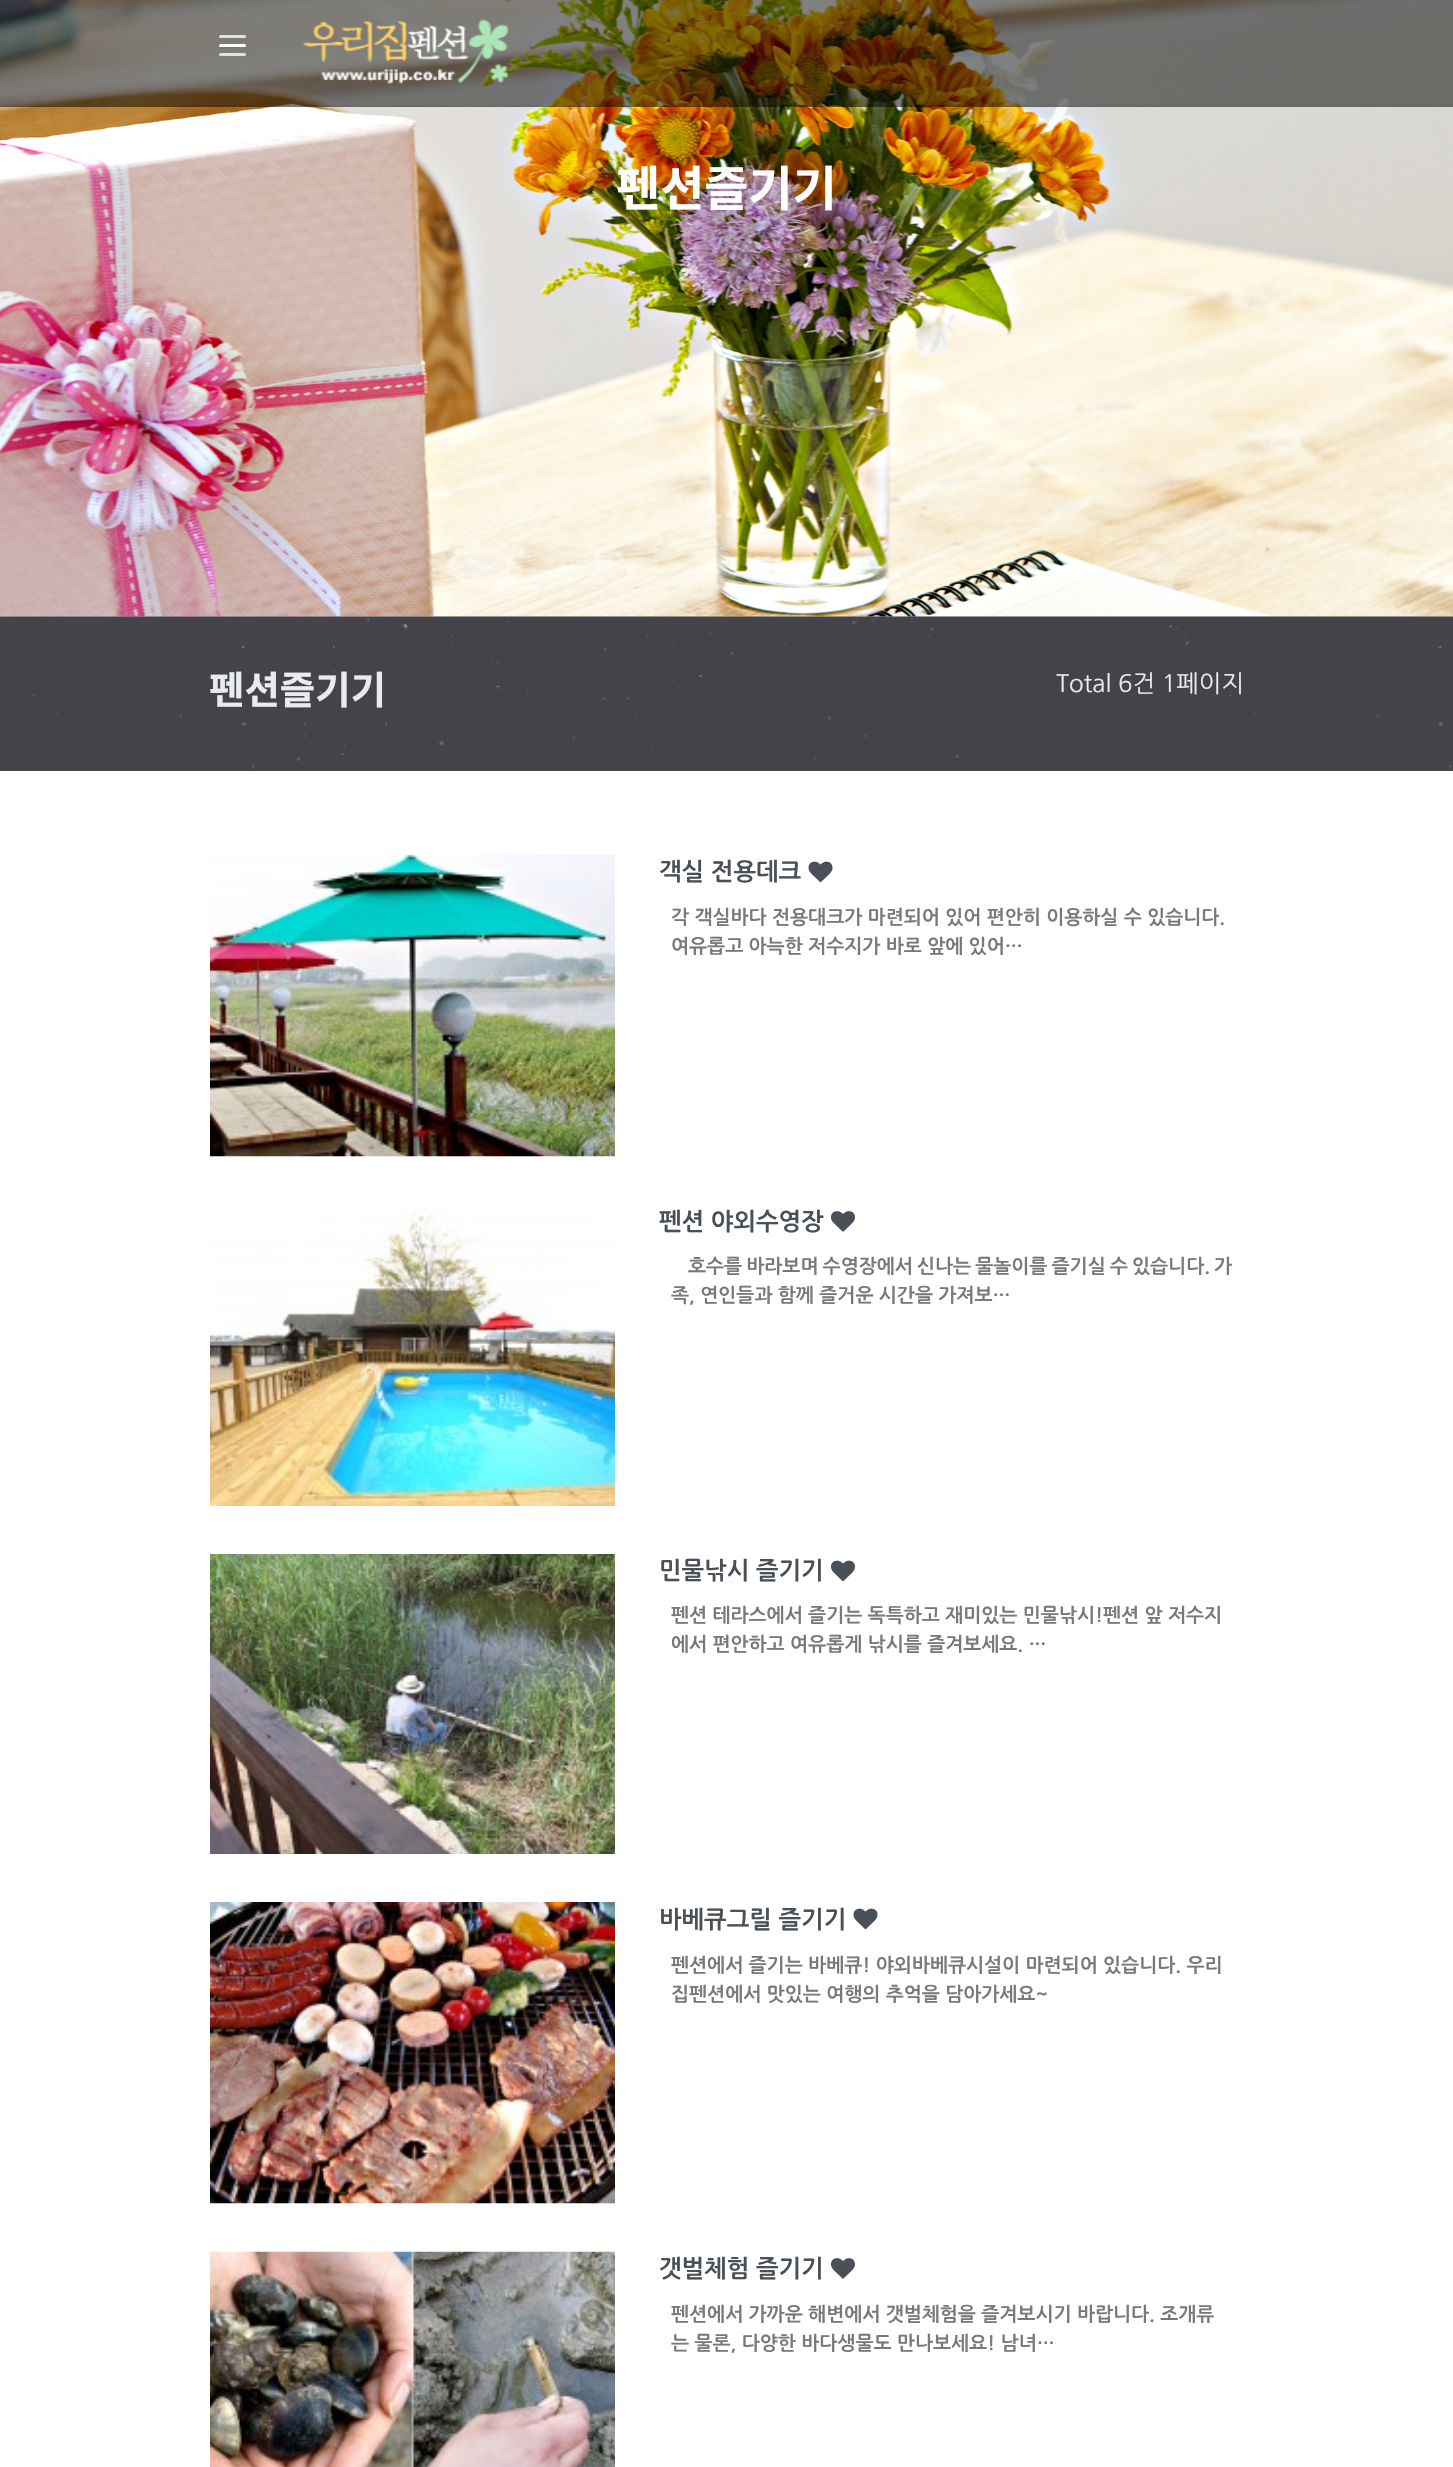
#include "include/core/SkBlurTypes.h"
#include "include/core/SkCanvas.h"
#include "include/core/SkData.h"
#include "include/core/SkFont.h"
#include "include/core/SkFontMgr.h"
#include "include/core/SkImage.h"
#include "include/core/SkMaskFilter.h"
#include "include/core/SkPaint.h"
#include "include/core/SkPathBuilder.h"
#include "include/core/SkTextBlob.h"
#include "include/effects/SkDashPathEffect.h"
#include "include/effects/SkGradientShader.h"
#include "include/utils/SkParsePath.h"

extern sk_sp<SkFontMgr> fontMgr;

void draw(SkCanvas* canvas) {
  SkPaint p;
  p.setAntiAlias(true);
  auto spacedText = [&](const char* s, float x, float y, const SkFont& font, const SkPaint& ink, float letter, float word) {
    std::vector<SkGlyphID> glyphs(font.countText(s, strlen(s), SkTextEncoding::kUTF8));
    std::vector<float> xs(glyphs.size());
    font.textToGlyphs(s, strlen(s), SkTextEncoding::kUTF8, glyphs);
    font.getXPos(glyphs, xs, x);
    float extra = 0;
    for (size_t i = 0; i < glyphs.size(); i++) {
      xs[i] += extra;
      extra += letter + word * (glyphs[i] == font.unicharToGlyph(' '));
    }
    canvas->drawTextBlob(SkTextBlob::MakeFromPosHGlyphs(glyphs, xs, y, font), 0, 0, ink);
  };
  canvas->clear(SK_ColorWHITE);
  p.setColor(SkColorSetARGB(51, 0, 0, 0));
  p.setMaskFilter(SkMaskFilter::MakeBlur(kNormal_SkBlurStyle, 7.5f));
  canvas->drawRect(SkRect::MakeLTRB(0, 0, 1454, 617), p);
  p.setMaskFilter(nullptr);
  canvas->drawImageRect(SkImages::DeferredFromEncodedData(SkData::MakeFromFileName("images/2.png")), SkRect::MakeLTRB(0, 0, 1453, 617), SkSamplingOptions());
  p.setColor(SkColorSetARGB(128, 1, 1, 1));
  canvas->drawRect(SkRect::MakeLTRB(0, 0, 1453, 107), p);
  p.setColor(SkColorSetARGB(13, 0, 0, 0));
  canvas->drawRect(SkRect::MakeLTRB(0, 105, 1453, 107), p);
  p.setColor(SK_ColorWHITE);
  canvas->drawRoundRect(SkRect::MakeLTRB(219, 44, 246, 47), 1.5f, 1.5f, p);
  p.setColor(SkColorSetRGB(222, 226, 230));
  canvas->drawRoundRect(SkRect::MakeLTRB(219, 35, 246, 38), 1.5f, 1.5f, p);
  canvas->drawRoundRect(SkRect::MakeLTRB(219, 53, 246, 56), 1.5f, 1.5f, p);
  canvas->drawImageRect(SkImages::DeferredFromEncodedData(SkData::MakeFromFileName("images/1.png")), SkRect::MakeLTRB(303, 19, 509, 84), SkSamplingOptions());
  canvas->drawImageRect(SkImages::DeferredFromEncodedData(SkData::MakeFromFileName("images/3.png")), SkRect::MakeLTRB(0, 616, 1453, 771), SkSamplingOptions());
  canvas->drawImageRect(SkImages::DeferredFromEncodedData(SkData::MakeFromFileName("images/4.png")), SkRect::MakeLTRB(210, 855, 615, 1157), SkSamplingOptions());
  canvas->drawImageRect(SkImages::DeferredFromEncodedData(SkData::MakeFromFileName("images/5.png")), SkRect::MakeLTRB(808, 861, 833, 883), SkSamplingOptions());
  canvas->drawImageRect(SkImages::DeferredFromEncodedData(SkData::MakeFromFileName("images/6.png")), SkRect::MakeLTRB(210, 1208, 615, 1506), SkSamplingOptions());
  canvas->drawImageRect(SkImages::DeferredFromEncodedData(SkData::MakeFromFileName("images/7.png")), SkRect::MakeLTRB(831, 1211, 855, 1232), SkSamplingOptions());
  canvas->drawImageRect(SkImages::DeferredFromEncodedData(SkData::MakeFromFileName("images/8.png")), SkRect::MakeLTRB(210, 1554, 615, 1854), SkSamplingOptions());
  canvas->drawImageRect(SkImages::DeferredFromEncodedData(SkData::MakeFromFileName("images/9.png")), SkRect::MakeLTRB(831, 1560, 855, 1582), SkSamplingOptions());
  canvas->drawImageRect(SkImages::DeferredFromEncodedData(SkData::MakeFromFileName("images/10.png")), SkRect::MakeLTRB(210, 1902, 615, 2204), SkSamplingOptions());
  canvas->drawImageRect(SkImages::DeferredFromEncodedData(SkData::MakeFromFileName("images/5.png")), SkRect::MakeLTRB(853, 1908, 878, 1930), SkSamplingOptions());
  canvas->drawImageRect(SkImages::DeferredFromEncodedData(SkData::MakeFromFileName("images/11.png")), SkRect::MakeLTRB(210, 2251, 615, 2467), SkSamplingOptions());
  canvas->drawImageRect(SkImages::DeferredFromEncodedData(SkData::MakeFromFileName("images/7.png")), SkRect::MakeLTRB(831, 2258, 855, 2279), SkSamplingOptions());
  SkFont font1(fontMgr->matchFamilyStyle("Noto Sans KR", SkFontStyle::Bold()), 48);
  font1.setSubpixel(true);
  p.setColor(SK_ColorWHITE);
  canvas->drawString("펜션즐기기", 616, 206, font1, p);
  SkFont font2(fontMgr->matchFamilyStyle("Noto Sans KR", SkFontStyle::Bold()), 38.5f);
  font2.setSubpixel(true);
  p.setColor(SkColorSetRGB(233, 236, 239));
  canvas->drawString("펜션즐기기", 209, 704, font2, p);
  SkFont font3(fontMgr->matchFamilyStyle("NanumGothic", SkFontStyle::Normal()), 24);
  font3.setSubpixel(true);
  canvas->drawString("Total 6건 1페이지", 1056, 692, font3, p);
  SkFont font4(fontMgr->matchFamilyStyle("NanumGothic", SkFontStyle::Bold()), 24);
  font4.setSubpixel(true);
  p.setColor(SkColorSetRGB(73, 80, 87));
  canvas->drawString("객실 전용데크", 659, 880, font4, p);
  SkFont font5(fontMgr->matchFamilyStyle("NanumGothic", SkFontStyle::Bold()), 19.2f);
  font5.setSubpixel(true);
  p.setColor(SkColorSetRGB(122, 121, 121));
  canvas->drawString("각 객실바다 전용대크가 마련되어 있어 편안히 이용하실 수 있습니다.", 671, 924, font5, p);
  canvas->drawString("여유롭고 아늑한 저수지가 바로 앞에 있어…", 671, 953, font5, p);
  p.setColor(SkColorSetRGB(73, 80, 87));
  canvas->drawString("펜션 야외수영장", 659, 1230, font4, p);
  p.setColor(SkColorSetRGB(122, 121, 121));
  spacedText("호수를 바라보며 수영장에서 신나는 물놀이를 즐기실 수 있습니다. 가", 688, 1273, font5, p, 0, -1.25f);
  canvas->drawString("족, 연인들과 함께 즐거운 시간을 가져보…", 671, 1302, font5, p);
  p.setColor(SkColorSetRGB(73, 80, 87));
  canvas->drawString("민물낚시 즐기기", 659, 1579, font4, p);
  p.setColor(SkColorSetRGB(122, 121, 121));
  canvas->drawString("펜션 테라스에서 즐기는 독특하고 재미있는 민물낚시!펜션 앞 저수지", 671, 1622, font5, p);
  canvas->drawString("에서 편안하고 여유롭게 낚시를 즐겨보세요. …", 671, 1651, font5, p);
  p.setColor(SkColorSetRGB(73, 80, 87));
  canvas->drawString("바베큐그릴 즐기기", 659, 1928, font4, p);
  p.setColor(SkColorSetRGB(122, 121, 121));
  canvas->drawString("펜션에서 즐기는 바베큐! 야외바베큐시설이 마련되어 있습니다. 우리", 671, 1972, font5, p);
  canvas->drawString("집펜션에서 맛있는 여행의 추억을 담아가세요~", 671, 2001, font5, p);
  p.setColor(SkColorSetRGB(73, 80, 87));
  canvas->drawString("갯벌체험 즐기기", 659, 2277, font4, p);
  p.setColor(SkColorSetRGB(122, 121, 121));
  canvas->drawString("펜션에서 가까운 해변에서 갯벌체험을 즐겨보시기 바랍니다. 조개류", 671, 2321, font5, p);
  canvas->drawString("는 물론, 다양한 바다생물도 만나보세요! 남녀…", 671, 2350, font5, p);
}
